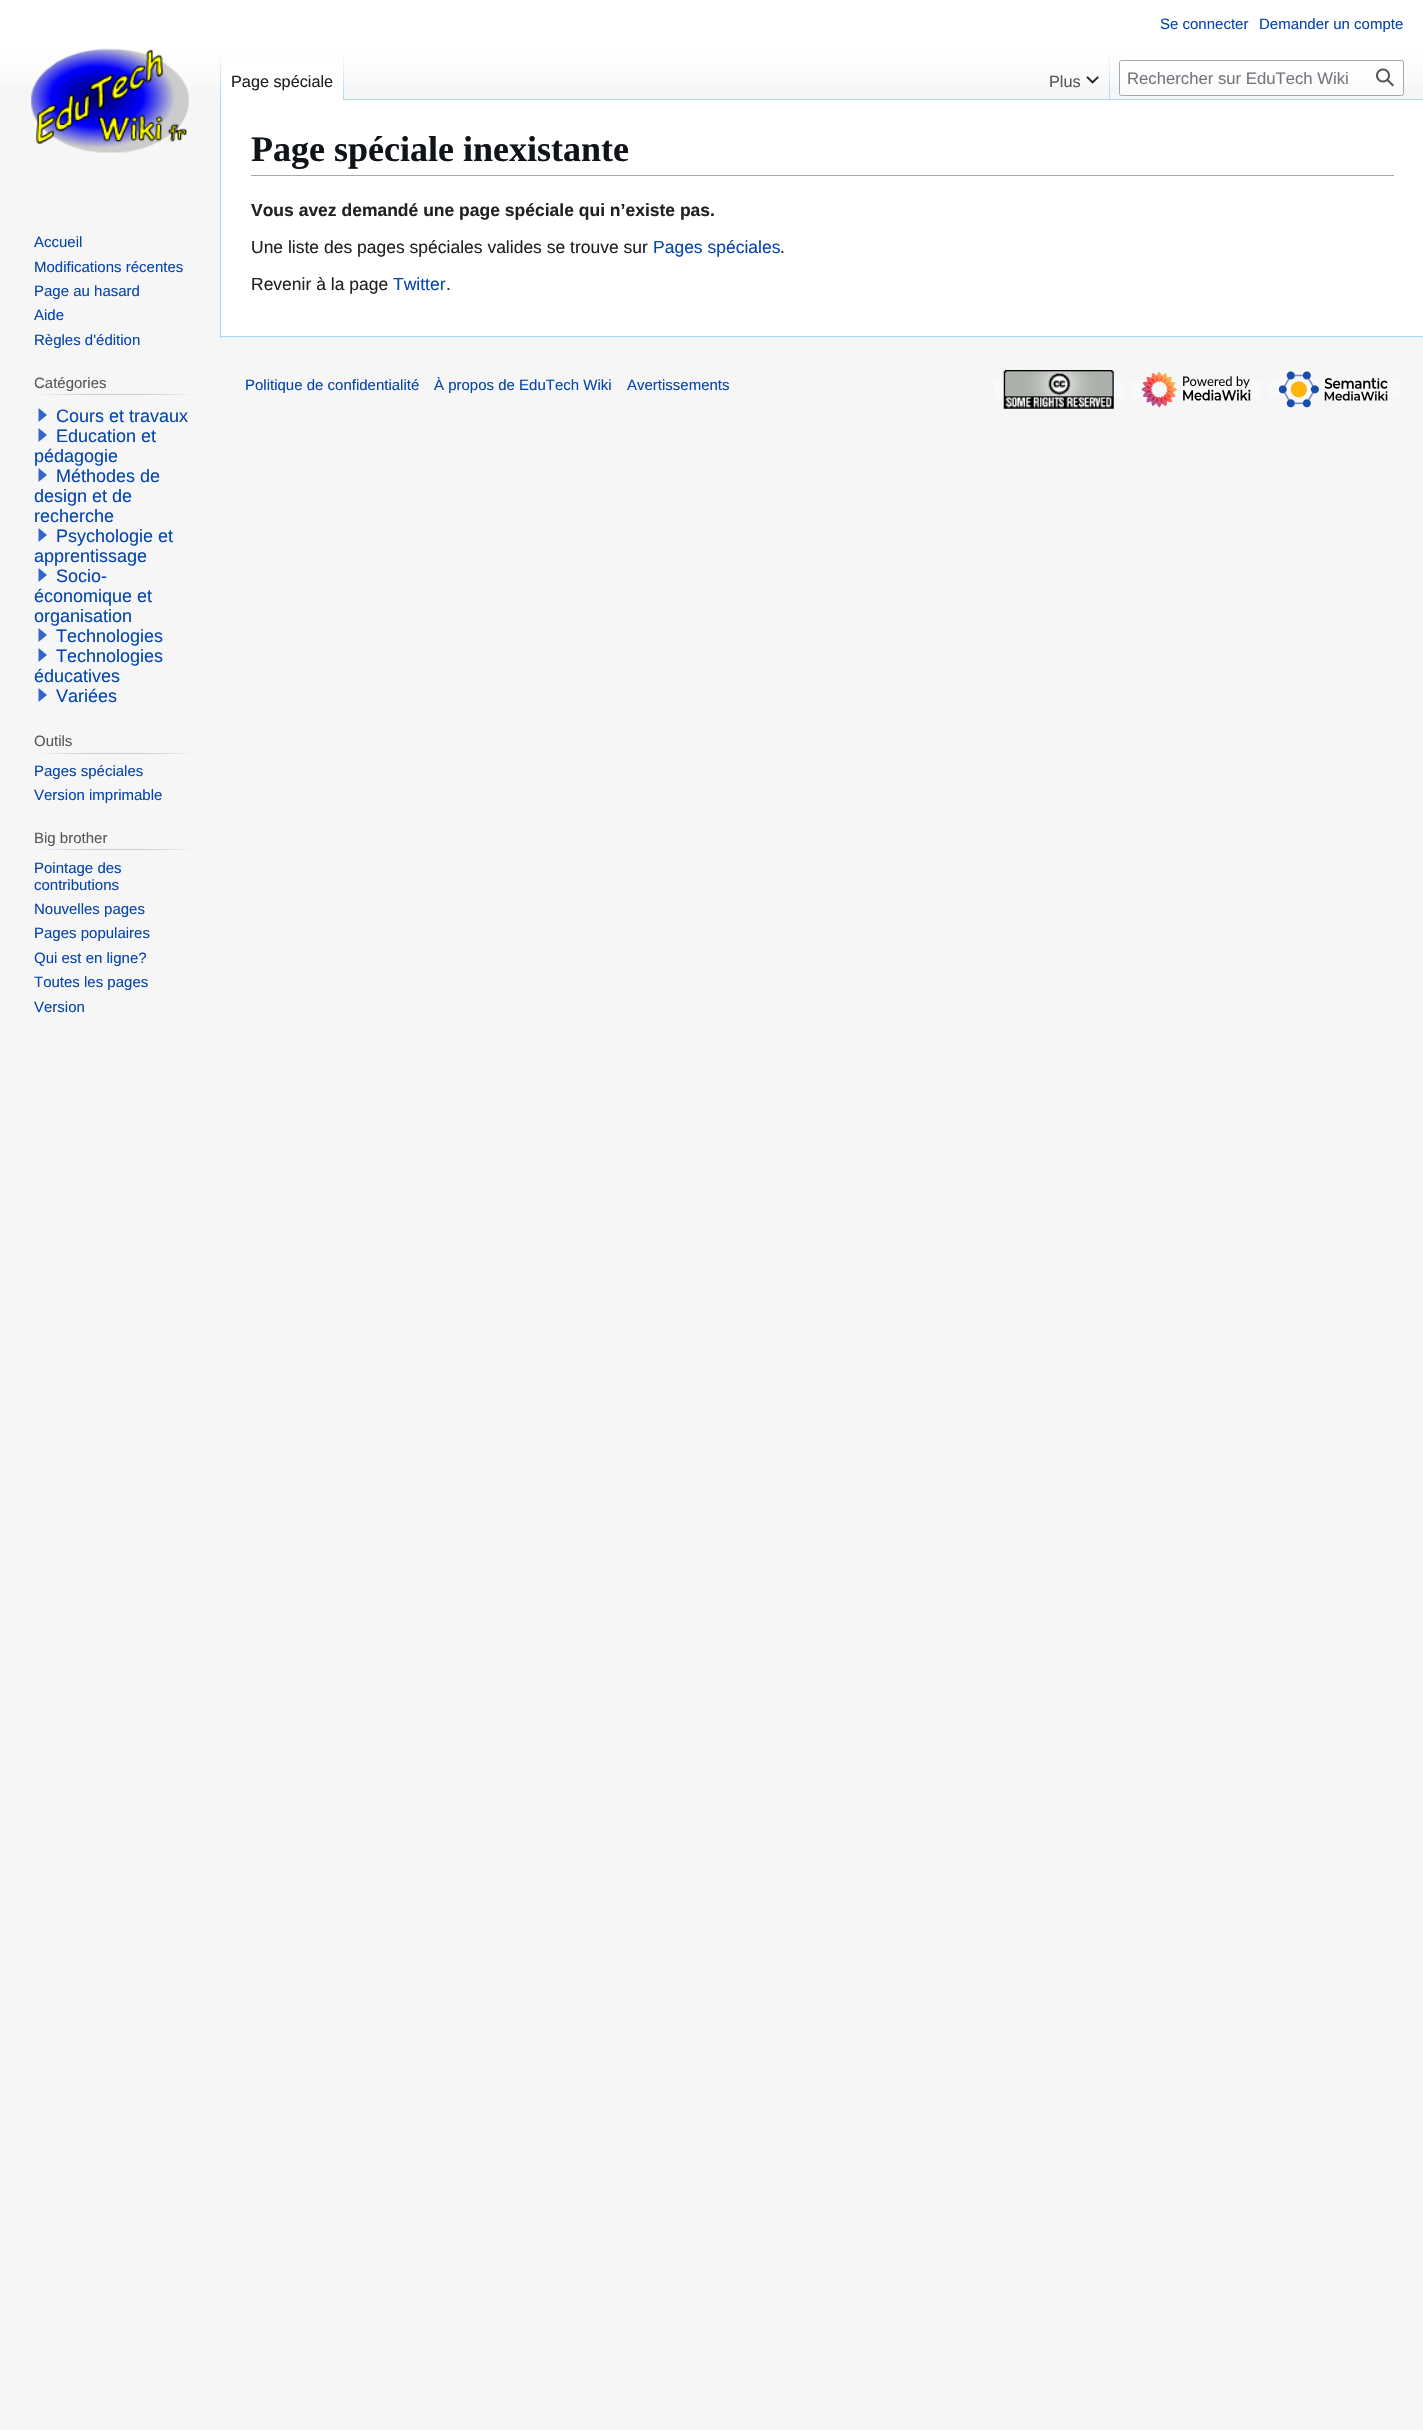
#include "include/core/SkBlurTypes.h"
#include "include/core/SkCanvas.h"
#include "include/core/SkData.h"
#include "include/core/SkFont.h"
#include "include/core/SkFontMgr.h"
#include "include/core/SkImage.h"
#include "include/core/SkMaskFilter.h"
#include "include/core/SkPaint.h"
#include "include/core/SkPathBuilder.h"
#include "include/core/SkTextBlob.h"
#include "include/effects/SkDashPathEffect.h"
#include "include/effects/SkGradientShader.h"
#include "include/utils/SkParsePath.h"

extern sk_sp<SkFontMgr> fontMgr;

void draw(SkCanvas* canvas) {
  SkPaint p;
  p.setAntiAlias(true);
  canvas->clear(SkColorSetRGB(246, 246, 246));
  {
    const SkColor colors[] = {SK_ColorWHITE, SkColorSetRGB(246, 246, 246)};
    const float stops[] = {0.5f, 1};
    const SkPoint ends[] = {{712, 0}, {712, 100}};
    p.setShader(SkGradientShader::MakeLinear(ends, colors, stops, 2, SkTileMode::kClamp));
    p.setAlpha(255);
  }
  canvas->drawRect(SkRect::MakeLTRB(0, 0, 1423, 86), p);
  p.setShader(nullptr);
  p.setColor(SkColorSetRGB(167, 215, 249));
  canvas->drawRect(SkRect::MakeLTRB(220, 336, 1423, 337), p);
  canvas->drawRect(SkRect::MakeLTRB(220, 99, 221, 338), p);
  {
    const SkColor colors[] = {SkColorSetARGB(0, 167, 215, 249), SkColorSetRGB(167, 215, 249)};
    const float stops[] = {0, 1};
    const SkPoint ends[] = {{221, 50}, {221, 100}};
    p.setShader(SkGradientShader::MakeLinear(ends, colors, stops, 2, SkTileMode::kClamp));
    p.setAlpha(255);
  }
  canvas->drawRect(SkRect::MakeLTRB(220, 50, 221, 100), p);
  p.setShader(nullptr);
  p.setColor(SK_ColorWHITE);
  canvas->drawRect(SkRect::MakeLTRB(221, 64, 343, 100), p);
  {
    const SkColor colors[] = {SK_ColorWHITE, SkColorSetRGB(167, 215, 249)};
    const float stops[] = {0, 1};
    const SkPoint ends[] = {{343, 50}, {343, 100}};
    p.setShader(SkGradientShader::MakeLinear(ends, colors, stops, 2, SkTileMode::kClamp));
    p.setAlpha(255);
  }
  canvas->drawRect(SkRect::MakeLTRB(343, 50, 344, 100), p);
  p.setShader(nullptr);
  p.setColor(SkColorSetRGB(167, 215, 249));
  canvas->drawRect(SkRect::MakeLTRB(344, 99, 1423, 100), p);
  {
    const SkColor colors[] = {SkColorSetARGB(0, 167, 215, 249), SkColorSetRGB(167, 215, 249)};
    const float stops[] = {0, 1};
    const SkPoint ends[] = {{1109, 50}, {1109, 100}};
    p.setShader(SkGradientShader::MakeLinear(ends, colors, stops, 2, SkTileMode::kClamp));
    p.setAlpha(255);
  }
  canvas->drawRect(SkRect::MakeLTRB(1109, 50, 1110, 100), p);
  canvas->drawImageRect(SkImages::DeferredFromEncodedData(SkData::MakeFromFileName("images/1.png")), SkRect::MakeLTRB(1086, 76, 1099, 84), SkSamplingOptions());
  p.setShader(nullptr);
  p.setColor(SkColorSetARGB(128, 255, 255, 255));
  canvas->drawRoundRect(SkRect::MakeLTRB(1119.5f, 60.5f, 1403.5f, 95.5f), 2, 2, p);
  p.setStyle(SkPaint::kStroke_Style);
  p.setStrokeWidth(1);
  p.setColor(SkColorSetRGB(162, 169, 177));
  canvas->drawRoundRect(SkRect::MakeLTRB(1119.5f, 60.5f, 1403.5f, 95.5f), 2, 2, p);
  canvas->drawImageRect(SkImages::DeferredFromEncodedData(SkData::MakeFromFileName("images/2.png")), SkRect::MakeLTRB(1376, 68, 1394, 87), SkSamplingOptions());
  canvas->drawImageRect(SkImages::DeferredFromEncodedData(SkData::MakeFromFileName("images/3.png")), SkRect::MakeLTRB(31, 48, 189, 153), SkSamplingOptions());
  p.setStyle(SkPaint::kFill_Style);
  {
    const SkColor colors[] = {SkColorSetRGB(246, 246, 246), SkColorSetRGB(200, 204, 209), SkColorSetRGB(200, 204, 209), SkColorSetRGB(246, 246, 246)};
    const float stops[] = {0, 0.33f, 0.66f, 1};
    const SkPoint ends[] = {{34, 394}, {198, 394}};
    p.setShader(SkGradientShader::MakeLinear(ends, colors, stops, 4, SkTileMode::kClamp));
    p.setAlpha(255);
  }
  canvas->drawRect(SkRect::MakeLTRB(34, 394, 198, 395), p);
  p.setShader(nullptr);
  p.setColor(SkColorSetRGB(51, 102, 204));
  canvas->drawPath(SkPathBuilder().moveTo(47, 415).lineTo(38.5f, 422).lineTo(38.5f, 408).close().moveTo(47, 435).lineTo(38.5f, 442).lineTo(38.5f, 428).close().detach(), p);
  canvas->drawPath(SkPathBuilder().moveTo(47, 475).lineTo(38.5f, 482).lineTo(38.5f, 468).close().detach(), p);
  canvas->drawPath(SkPathBuilder().moveTo(47, 635).lineTo(38.5f, 642).lineTo(38.5f, 628).close().moveTo(47, 655).lineTo(38.5f, 662).lineTo(38.5f, 648).close().detach(), p);
  canvas->drawPath(SkPathBuilder().moveTo(47, 695).lineTo(38.5f, 702).lineTo(38.5f, 688).close().detach(), p);
  {
    const SkColor colors[] = {SkColorSetRGB(246, 246, 246), SkColorSetRGB(200, 204, 209), SkColorSetRGB(200, 204, 209), SkColorSetRGB(246, 246, 246)};
    const float stops[] = {0, 0.33f, 0.66f, 1};
    const SkPoint ends[] = {{34, 753}, {198, 753}};
    p.setShader(SkGradientShader::MakeLinear(ends, colors, stops, 4, SkTileMode::kClamp));
    p.setAlpha(255);
  }
  canvas->drawRect(SkRect::MakeLTRB(34, 753, 198, 754), p);
  {
    const SkColor colors[] = {SkColorSetRGB(246, 246, 246), SkColorSetRGB(200, 204, 209), SkColorSetRGB(200, 204, 209), SkColorSetRGB(246, 246, 246)};
    const float stops[] = {0, 0.33f, 0.66f, 1};
    const SkPoint ends[] = {{34, 849}, {198, 849}};
    p.setShader(SkGradientShader::MakeLinear(ends, colors, stops, 4, SkTileMode::kClamp));
    p.setAlpha(255);
  }
  canvas->drawRect(SkRect::MakeLTRB(34, 849, 198, 850), p);
  p.setShader(nullptr);
  p.setColor(SK_ColorWHITE);
  canvas->drawRect(SkRect::MakeLTRB(221, 100, 1423, 336), p);
  p.setColor(SkColorSetRGB(162, 169, 177));
  canvas->drawRect(SkRect::MakeLTRB(251, 175, 1394, 176), p);
  p.setColor(SkColorSetRGB(248, 249, 250));
  canvas->drawRect(SkRect::MakeLTRB(994, 380, 1124, 398), p);
  canvas->drawImageRect(SkImages::DeferredFromEncodedData(SkData::MakeFromFileName("images/4.png")), SkRect::MakeLTRB(1003, 370, 1114, 409), SkSamplingOptions());
  canvas->drawRect(SkRect::MakeLTRB(1131, 380, 1261, 398), p);
  canvas->drawImageRect(SkImages::DeferredFromEncodedData(SkData::MakeFromFileName("images/5.png")), SkRect::MakeLTRB(1141, 371, 1251, 408), SkSamplingOptions());
  canvas->drawRect(SkRect::MakeLTRB(1269, 380, 1399, 398), p);
  canvas->drawImageRect(SkImages::DeferredFromEncodedData(SkData::MakeFromFileName("images/6.png")), SkRect::MakeLTRB(1279, 371, 1388, 408), SkSamplingOptions());
  SkFont font1(fontMgr->matchFamilyStyle("Liberation Sans", SkFontStyle::Normal()), 15);
  font1.setSubpixel(true);
  p.setColor(SkColorSetRGB(6, 69, 173));
  canvas->drawString("Se connecter", 1160, 29, font1, p);
  canvas->drawString("Demander un compte", 1259, 29, font1, p);
  SkFont font2(fontMgr->matchFamilyStyle("Liberation Sans", SkFontStyle::Normal()), 16.25f);
  font2.setSubpixel(true);
  p.setColor(SkColorSetRGB(32, 33, 34));
  canvas->drawString("Page spéciale", 231, 87, font2, p);
  p.setColor(SkColorSetRGB(84, 89, 93));
  canvas->drawString("Plus", 1049, 87, font2, p);
  SkFont font3(fontMgr->matchFamilyStyle("Liberation Sans", SkFontStyle::Normal()), 16.7f);
  font3.setSubpixel(true);
  p.setColor(SkColorSetRGB(114, 119, 125));
  canvas->drawString("Rechercher sur EduTech Wiki", 1127, 84, font3, p);
  p.setColor(SkColorSetRGB(6, 69, 173));
  canvas->drawString("Accueil", 34, 247, font1, p);
  canvas->drawString("Modifications récentes", 34, 272, font1, p);
  canvas->drawString("Page au hasard", 34, 296, font1, p);
  canvas->drawString("Aide", 34, 320, font1, p);
  canvas->drawString("Règles d'édition", 34, 345, font1, p);
  p.setColor(SkColorSetRGB(84, 89, 93));
  canvas->drawString("Catégories", 34, 388, font1, p);
  SkFont font4(fontMgr->matchFamilyStyle("Liberation Sans", SkFontStyle::Normal()), 18);
  font4.setSubpixel(true);
  p.setColor(SkColorSetRGB(6, 69, 173));
  canvas->drawString("Cours et travaux", 56, 422, font4, p);
  canvas->drawString("Education et", 56, 442, font4, p);
  canvas->drawString("pédagogie", 34, 462, font4, p);
  canvas->drawString("Méthodes de", 56, 482, font4, p);
  canvas->drawString("design et de", 34, 502, font4, p);
  canvas->drawString("recherche", 34, 522, font4, p);
  canvas->drawString("Psychologie et", 56, 542, font4, p);
  canvas->drawString("apprentissage", 34, 562, font4, p);
  p.setColor(SkColorSetRGB(51, 102, 204));
  canvas->drawPath(SkPathBuilder().moveTo(47, 535).lineTo(38.5f, 542).lineTo(38.5f, 528).close().moveTo(47, 575).lineTo(38.5f, 582).lineTo(38.5f, 568).close().detach(), p);
  p.setColor(SkColorSetRGB(6, 69, 173));
  canvas->drawString("Socio-", 56, 582, font4, p);
  canvas->drawString("économique et", 34, 602, font4, p);
  canvas->drawString("organisation", 34, 622, font4, p);
  canvas->drawString("Technologies", 56, 642, font4, p);
  canvas->drawString("Technologies", 56, 662, font4, p);
  canvas->drawString("éducatives", 34, 682, font4, p);
  canvas->drawString("Variées", 56, 702, font4, p);
  p.setColor(SkColorSetRGB(84, 89, 93));
  canvas->drawString("Outils", 34, 746, font1, p);
  p.setColor(SkColorSetRGB(6, 69, 173));
  canvas->drawString("Pages spéciales", 34, 776, font1, p);
  canvas->drawString("Version imprimable", 34, 800, font1, p);
  p.setColor(SkColorSetRGB(84, 89, 93));
  canvas->drawString("Big brother", 34, 843, font1, p);
  p.setColor(SkColorSetRGB(6, 69, 173));
  canvas->drawString("Pointage des", 34, 873, font1, p);
  canvas->drawString("contributions", 34, 890, font1, p);
  canvas->drawString("Nouvelles pages", 34, 914, font1, p);
  canvas->drawString("Pages populaires", 34, 938, font1, p);
  canvas->drawString("Qui est en ligne?", 34, 963, font1, p);
  canvas->drawString("Toutes les pages", 34, 987, font1, p);
  canvas->drawString("Version", 34, 1012, font1, p);
  SkFont font5(fontMgr->matchFamilyStyle("Liberation Serif", SkFontStyle::Bold()), 36);
  font5.setSubpixel(true);
  p.setColor(SkColorSetRGB(16, 20, 24));
  canvas->drawString("Page spéciale inexistante", 251, 161, font5, p);
  SkFont font6(fontMgr->matchFamilyStyle("Liberation Sans", SkFontStyle::Bold()), 17.5f);
  font6.setSubpixel(true);
  p.setColor(SkColorSetRGB(32, 33, 34));
  canvas->drawString("Vous avez demandé une page spéciale qui n’existe pas.", 251, 216, font6, p);
  SkFont font7(fontMgr->matchFamilyStyle("Liberation Sans", SkFontStyle::Normal()), 17.5f);
  font7.setSubpixel(true);
  canvas->drawString("Une liste des pages spéciales valides se trouve sur", 251, 253, font7, p);
  p.setColor(SkColorSetRGB(6, 69, 173));
  canvas->drawString("Pages spéciales", 653, 253, font7, p);
  p.setColor(SkColorSetRGB(32, 33, 34));
  canvas->drawString(".", 780, 253, font7, p);
  canvas->drawString("Revenir à la page", 251, 290, font7, p);
  p.setColor(SkColorSetRGB(6, 69, 173));
  canvas->drawString("Twitter", 393, 290, font7, p);
  p.setColor(SkColorSetRGB(32, 33, 34));
  canvas->drawString(".", 446, 290, font7, p);
  p.setColor(SkColorSetRGB(6, 69, 173));
  canvas->drawString("Politique de confidentialité", 245, 390, font1, p);
  canvas->drawString("À propos de EduTech Wiki", 434, 390, font1, p);
  canvas->drawString("Avertissements", 627, 390, font1, p);
}
